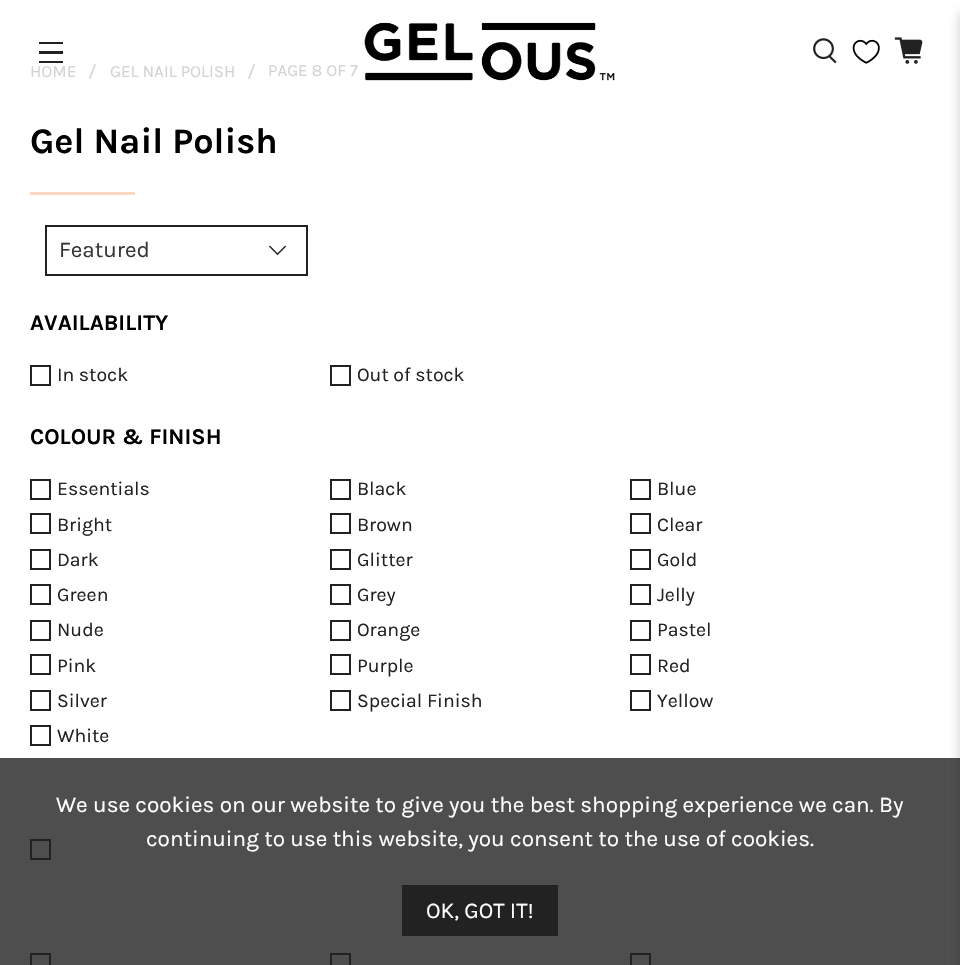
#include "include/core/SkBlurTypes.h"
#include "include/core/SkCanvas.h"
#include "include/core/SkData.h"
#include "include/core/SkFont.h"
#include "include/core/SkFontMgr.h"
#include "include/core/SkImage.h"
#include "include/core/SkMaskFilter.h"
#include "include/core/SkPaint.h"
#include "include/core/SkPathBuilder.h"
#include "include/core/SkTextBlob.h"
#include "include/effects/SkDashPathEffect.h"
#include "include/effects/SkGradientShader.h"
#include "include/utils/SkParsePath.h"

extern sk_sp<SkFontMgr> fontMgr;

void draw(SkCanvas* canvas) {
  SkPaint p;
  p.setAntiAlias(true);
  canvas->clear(SK_ColorWHITE);
  p.setColor(SkColorSetRGB(34, 34, 34));
  canvas->drawRect(SkRect::MakeLTRB(39, 42, 63, 44), p);
  canvas->drawRect(SkRect::MakeLTRB(39, 51, 63, 54), p);
  canvas->drawRect(SkRect::MakeLTRB(39, 61, 63, 63), p);
  canvas->drawImageRect(SkImages::DeferredFromEncodedData(SkData::MakeFromFileName("images/1.png")), SkRect::MakeLTRB(364, 22, 615, 81), SkSamplingOptions());
  canvas->drawImageRect(SkImages::DeferredFromEncodedData(SkData::MakeFromFileName("images/2.png")), SkRect::MakeLTRB(813, 38, 837, 64), SkSamplingOptions());
  canvas->drawImageRect(SkImages::DeferredFromEncodedData(SkData::MakeFromFileName("images/3.png")), SkRect::MakeLTRB(852, 39, 880, 64), SkSamplingOptions());
  canvas->drawImageRect(SkImages::DeferredFromEncodedData(SkData::MakeFromFileName("images/4.png")), SkRect::MakeLTRB(894, 37, 923, 64), SkSamplingOptions());
  p.setColor(SkColorSetARGB(26, 10, 10, 10));
  p.setMaskFilter(SkMaskFilter::MakeBlur(kNormal_SkBlurStyle, 6));
  canvas->drawRect(SkRect::MakeLTRB(960, 12, 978, 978), p);
  p.setMaskFilter(nullptr);
  p.setColor(SkColorSetRGB(211, 211, 211));
  canvas->drawPath(SkPathBuilder().moveTo(89, 78.5f).lineTo(94.5f, 64).lineTo(96, 64.5f).lineTo(90.5f, 79).close().detach(), p);
  canvas->drawPath(SkPathBuilder().moveTo(248, 78.5f).lineTo(253.5f, 64).lineTo(255, 64.5f).lineTo(249.5f, 79).close().detach(), p);
  p.setColor(SkColorSetRGB(250, 215, 192));
  canvas->drawRect(SkRect::MakeLTRB(30, 192, 135, 195), p);
  p.setStyle(SkPaint::kStroke_Style);
  p.setStrokeWidth(2);
  p.setColor(SkColorSetRGB(34, 34, 34));
  canvas->drawRect(SkRect::MakeLTRB(46, 226, 307, 275), p);
  canvas->drawImageRect(SkImages::DeferredFromEncodedData(SkData::MakeFromFileName("images/5.png")), SkRect::MakeLTRB(269, 245, 286, 256), SkSamplingOptions());
  canvas->drawRect(SkRect::MakeLTRB(31, 366, 50, 385), p);
  canvas->drawRect(SkRect::MakeLTRB(331, 366, 350, 385), p);
  canvas->drawRect(SkRect::MakeLTRB(31, 480, 50, 499), p);
  canvas->drawRect(SkRect::MakeLTRB(331, 480, 350, 499), p);
  canvas->drawRect(SkRect::MakeLTRB(631, 480, 650, 499), p);
  canvas->drawRect(SkRect::MakeLTRB(31, 514, 50, 533), p);
  canvas->drawRect(SkRect::MakeLTRB(331, 514, 350, 533), p);
  canvas->drawRect(SkRect::MakeLTRB(631, 514, 650, 533), p);
  canvas->drawRect(SkRect::MakeLTRB(31, 550, 50, 569), p);
  canvas->drawRect(SkRect::MakeLTRB(331, 550, 350, 569), p);
  canvas->drawRect(SkRect::MakeLTRB(631, 550, 650, 569), p);
  canvas->drawRect(SkRect::MakeLTRB(31, 585, 50, 604), p);
  canvas->drawRect(SkRect::MakeLTRB(331, 585, 350, 604), p);
  canvas->drawRect(SkRect::MakeLTRB(631, 585, 650, 604), p);
  canvas->drawRect(SkRect::MakeLTRB(31, 621, 50, 640), p);
  canvas->drawRect(SkRect::MakeLTRB(331, 621, 350, 640), p);
  canvas->drawRect(SkRect::MakeLTRB(631, 621, 650, 640), p);
  canvas->drawRect(SkRect::MakeLTRB(31, 655, 50, 674), p);
  canvas->drawRect(SkRect::MakeLTRB(331, 655, 350, 674), p);
  canvas->drawRect(SkRect::MakeLTRB(631, 655, 650, 674), p);
  canvas->drawRect(SkRect::MakeLTRB(31, 691, 50, 710), p);
  canvas->drawRect(SkRect::MakeLTRB(331, 691, 350, 710), p);
  canvas->drawRect(SkRect::MakeLTRB(631, 691, 650, 710), p);
  canvas->drawRect(SkRect::MakeLTRB(31, 726, 50, 745), p);
  canvas->drawRect(SkRect::MakeLTRB(31, 840, 50, 859), p);
  canvas->drawRect(SkRect::MakeLTRB(31, 954, 50, 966), p);
  canvas->drawRect(SkRect::MakeLTRB(331, 954, 350, 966), p);
  canvas->drawRect(SkRect::MakeLTRB(631, 954, 650, 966), p);
  p.setStyle(SkPaint::kFill_Style);
  p.setColor(SkColorSetARGB(204, 34, 34, 34));
  canvas->drawRect(SkRect::MakeLTRB(0, 758, 960, 965), p);
  p.setColor(SkColorSetARGB(26, 10, 10, 10));
  p.setMaskFilter(SkMaskFilter::MakeBlur(kNormal_SkBlurStyle, 6));
  canvas->drawRect(SkRect::MakeLTRB(960, 12, 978, 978), p);
  p.setMaskFilter(nullptr);
  p.setColor(SkColorSetRGB(34, 34, 34));
  canvas->drawRect(SkRect::MakeLTRB(402, 885, 558, 936), p);
  SkFont font1(fontMgr->matchFamilyStyle("Karla", SkFontStyle::Normal()), 17);
  font1.setSubpixel(true);
  p.setColor(SkColorSetRGB(211, 211, 211));
  canvas->drawString("HOME", 30, 77, font1, p);
  canvas->drawString("GEL NAIL POLISH", 110, 77, font1, p);
  canvas->drawString("PAGE 8 OF 7", 268, 76, font1, p);
  SkFont font2(fontMgr->matchFamilyStyle("Karla", SkFontStyle::Bold()), 36);
  font2.setSubpixel(true);
  p.setColor(SK_ColorBLACK);
  canvas->drawString("Gel Nail Polish", 30, 153, font2, p);
  SkFont font3(fontMgr->matchFamilyStyle("Karla", SkFontStyle::Normal()), 22.5f);
  font3.setSubpixel(true);
  p.setColor(SkColorSetRGB(54, 54, 54));
  canvas->drawString("Featured", 59, 257, font3, p);
  SkFont font4(fontMgr->matchFamilyStyle("Karla", SkFontStyle::Bold()), 22.5f);
  font4.setSubpixel(true);
  p.setColor(SK_ColorBLACK);
  canvas->drawString("AVAILABILITY", 30, 330, font4, p);
  SkFont font5(fontMgr->matchFamilyStyle("Karla", SkFontStyle::Normal()), 19.5f);
  font5.setSubpixel(true);
  p.setColor(SkColorSetRGB(34, 34, 34));
  canvas->drawString("In stock", 57, 381, font5, p);
  canvas->drawString("Out of stock", 357, 381, font5, p);
  p.setColor(SK_ColorBLACK);
  canvas->drawString("COLOUR & FINISH", 30, 444, font4, p);
  p.setColor(SkColorSetRGB(34, 34, 34));
  canvas->drawString("Essentials", 57, 495, font5, p);
  canvas->drawString("Black", 357, 495, font5, p);
  canvas->drawString("Blue", 657, 495, font5, p);
  canvas->drawString("Bright", 57, 531, font5, p);
  canvas->drawString("Brown", 357, 531, font5, p);
  canvas->drawString("Clear", 657, 531, font5, p);
  canvas->drawString("Dark", 57, 566, font5, p);
  canvas->drawString("Glitter", 357, 566, font5, p);
  canvas->drawString("Gold", 657, 566, font5, p);
  canvas->drawString("Green", 57, 601, font5, p);
  canvas->drawString("Grey", 357, 601, font5, p);
  canvas->drawString("Jelly", 657, 601, font5, p);
  canvas->drawString("Nude", 57, 636, font5, p);
  canvas->drawString("Orange", 357, 636, font5, p);
  canvas->drawString("Pastel", 657, 636, font5, p);
  canvas->drawString("Pink", 57, 672, font5, p);
  canvas->drawString("Purple", 357, 672, font5, p);
  canvas->drawString("Red", 657, 672, font5, p);
  canvas->drawString("Silver", 57, 707, font5, p);
  canvas->drawString("Special Finish", 357, 707, font5, p);
  canvas->drawString("Yellow", 657, 707, font5, p);
  canvas->drawString("White", 57, 742, font5, p);
  p.setColor(SK_ColorWHITE);
  canvas->drawString("We use cookies on our website to give you the best shopping experience we can. By", 56, 812, font3, p);
  canvas->drawString("continuing to use this website, you consent to the use of cookies.", 146, 846, font3, p);
  canvas->drawString("OK, GOT IT!", 426, 918, font3, p);
}
